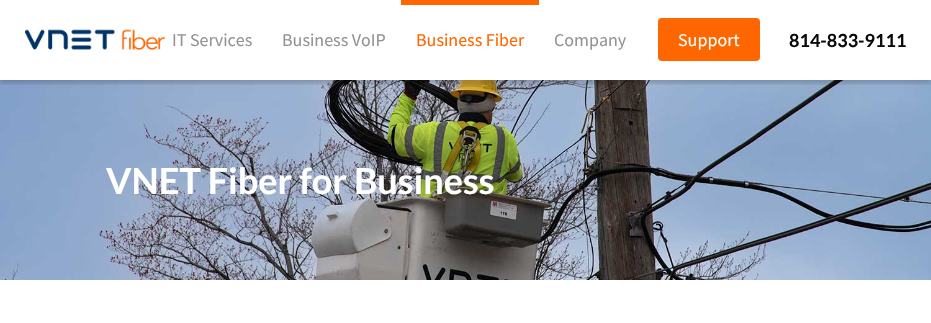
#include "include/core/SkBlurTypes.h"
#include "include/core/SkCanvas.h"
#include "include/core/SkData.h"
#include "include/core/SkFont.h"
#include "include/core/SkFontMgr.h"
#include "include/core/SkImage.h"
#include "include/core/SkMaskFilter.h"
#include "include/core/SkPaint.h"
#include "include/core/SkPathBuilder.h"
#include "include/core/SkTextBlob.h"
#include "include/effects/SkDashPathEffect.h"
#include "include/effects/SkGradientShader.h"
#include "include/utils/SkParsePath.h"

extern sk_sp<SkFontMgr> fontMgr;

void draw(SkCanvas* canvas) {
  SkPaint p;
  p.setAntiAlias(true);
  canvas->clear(SK_ColorWHITE);
  canvas->drawImageRect(SkImages::DeferredFromEncodedData(SkData::MakeFromFileName("images/2.png")), SkRect::MakeLTRB(0, 80, 931, 280), SkSamplingOptions());
  canvas->save();
  canvas->clipRect(SkRect::MakeLTRB(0, 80, 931, 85));
  p.setColor(SkColorSetARGB(26, 0, 0, 0));
  p.setMaskFilter(SkMaskFilter::MakeBlur(kNormal_SkBlurStyle, 2.5f));
  canvas->drawRect(SkRect::MakeLTRB(0, 3, 931, 83), p);
  p.setMaskFilter(nullptr);
  p.setMaskFilter(SkMaskFilter::MakeBlur(kNormal_SkBlurStyle, 2.5f));
  canvas->drawRect(SkRect::MakeLTRB(0, 3, 931, 83), p);
  p.setMaskFilter(nullptr);
  canvas->restore();
  canvas->drawImageRect(SkImages::DeferredFromEncodedData(SkData::MakeFromFileName("images/1.png")), SkRect::MakeLTRB(25, 29, 165, 50), SkSamplingOptions());
  p.setColor(SkColorSetRGB(255, 102, 0));
  canvas->drawRect(SkRect::MakeLTRB(401, 0, 539, 5), p);
  canvas->drawRoundRect(SkRect::MakeLTRB(657, 17, 761, 62), 5, 5, p);
  p.setStyle(SkPaint::kStroke_Style);
  p.setStrokeWidth(2);
  p.setColor(SK_ColorWHITE);
  canvas->drawRoundRect(SkRect::MakeLTRB(657, 17, 761, 62), 5, 5, p);
  SkFont font1(fontMgr->matchFamilyStyle("Source Sans Pro", SkFontStyle::Normal()), 18);
  font1.setSubpixel(true);
  p.setStyle(SkPaint::kFill_Style);
  p.setColor(SkColorSetRGB(147, 147, 147));
  canvas->drawString("IT Services", 172, 46, font1, p);
  canvas->drawString("Business VoIP", 282, 46, font1, p);
  p.setColor(SkColorSetRGB(255, 102, 0));
  canvas->drawString("Business Fiber", 416, 46, font1, p);
  p.setColor(SkColorSetRGB(147, 147, 147));
  canvas->drawString("Company", 554, 46, font1, p);
  p.setColor(SK_ColorWHITE);
  canvas->drawString("Support", 678, 46, font1, p);
  SkFont font2(fontMgr->matchFamilyStyle("Lato", SkFontStyle::Bold()), 18);
  font2.setSubpixel(true);
  p.setColor(SkColorSetRGB(10, 10, 10));
  canvas->drawString("814-833-9111", 789, 47, font2, p);
  SkFont font3(fontMgr->matchFamilyStyle("Lato", SkFontStyle::Bold()), 36);
  font3.setSubpixel(true);
  p.setColor(SK_ColorWHITE);
  canvas->drawString("VNET Fiber for Business", 106, 194, font3, p);
}
